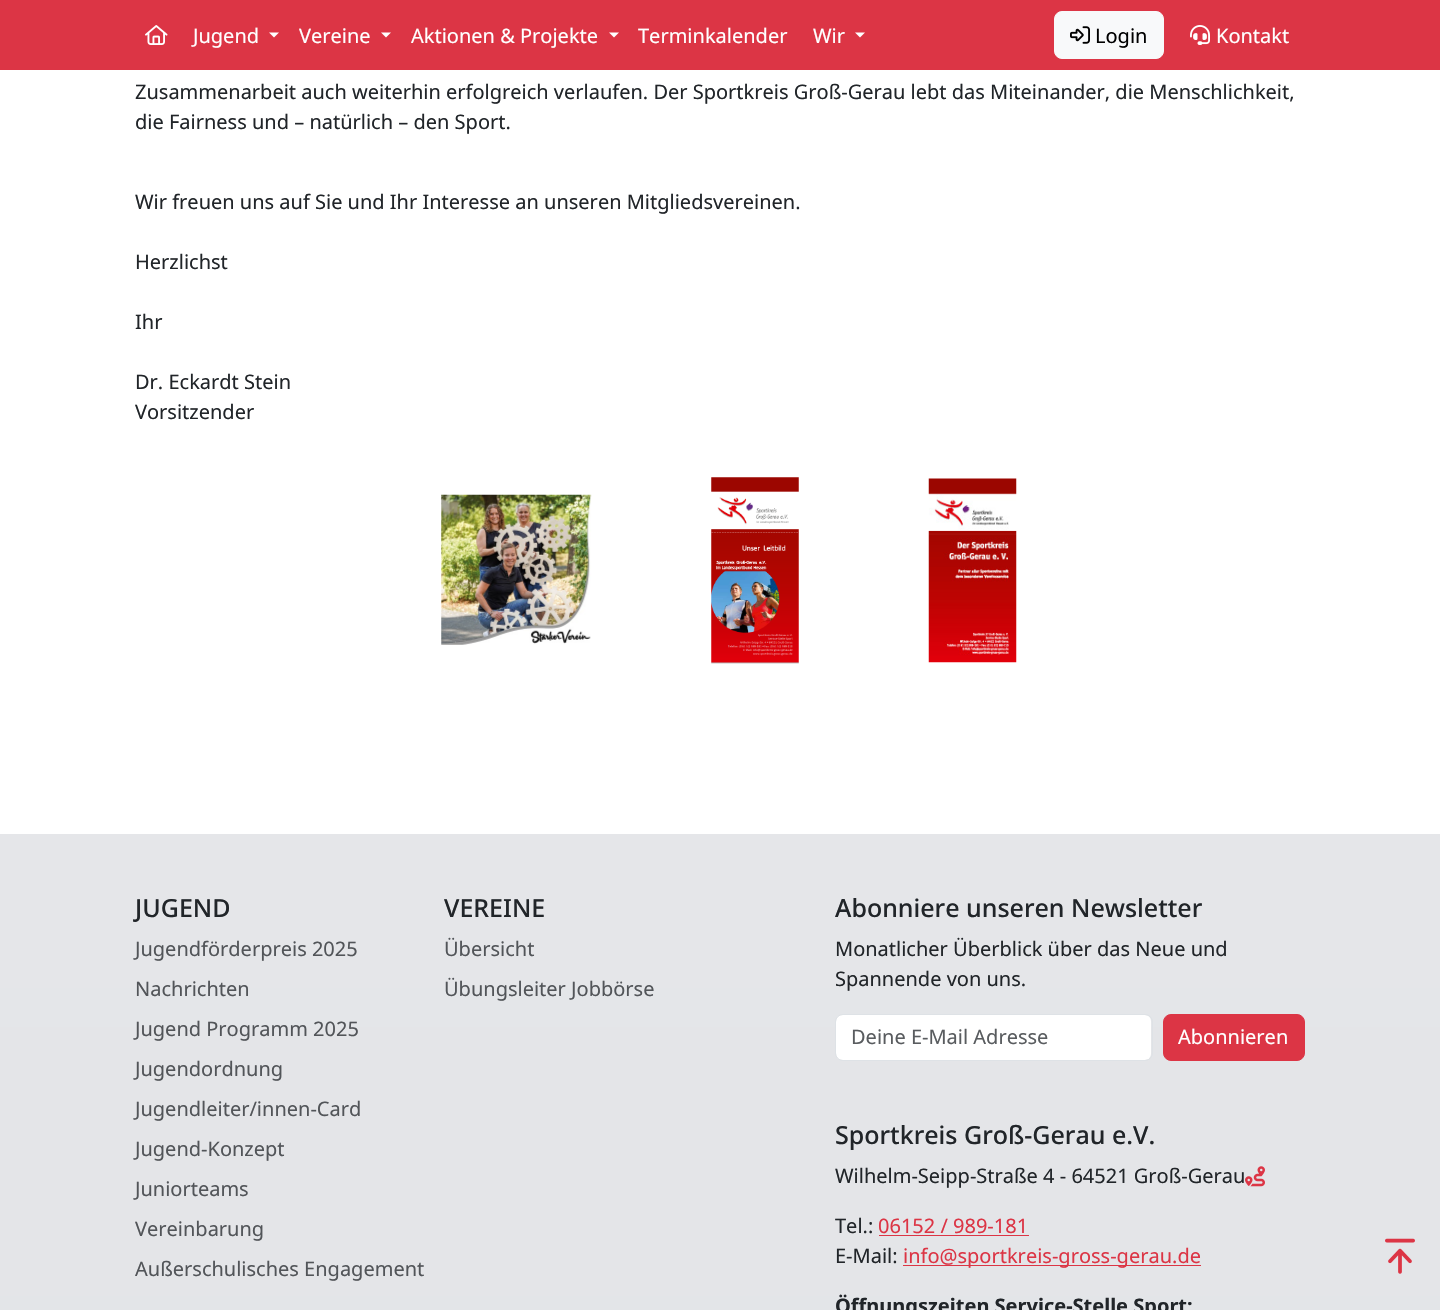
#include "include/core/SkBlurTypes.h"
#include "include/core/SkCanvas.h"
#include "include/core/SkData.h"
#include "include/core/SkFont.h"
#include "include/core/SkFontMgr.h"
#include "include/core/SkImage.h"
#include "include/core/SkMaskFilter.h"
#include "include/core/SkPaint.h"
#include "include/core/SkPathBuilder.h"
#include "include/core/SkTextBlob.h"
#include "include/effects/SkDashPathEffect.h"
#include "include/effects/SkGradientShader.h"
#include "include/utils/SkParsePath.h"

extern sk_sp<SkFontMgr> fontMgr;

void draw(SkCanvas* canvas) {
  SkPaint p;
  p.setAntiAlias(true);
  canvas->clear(SK_ColorWHITE);
  p.setColor(SkColorSetRGB(220, 53, 69));
  canvas->drawRect(SkRect::MakeLTRB(0, 0, 1440, 70), p);
  canvas->drawImageRect(SkImages::DeferredFromEncodedData(SkData::MakeFromFileName("images/1.png")), SkRect::MakeLTRB(145, 25, 168, 45), SkSamplingOptions());
  p.setColor(SK_ColorWHITE);
  canvas->drawPath(SkPathBuilder().moveTo(269, 32.5f).lineTo(279, 32.5f).lineTo(274, 37.5f).close().detach(), p);
  canvas->drawPath(SkPathBuilder().moveTo(381, 32.5f).lineTo(391, 32.5f).lineTo(386, 37.5f).close().detach(), p);
  canvas->drawPath(SkPathBuilder().moveTo(609, 32.5f).lineTo(619, 32.5f).lineTo(614, 37.5f).close().detach(), p);
  canvas->drawPath(SkPathBuilder().moveTo(855, 32.5f).lineTo(865, 32.5f).lineTo(860, 37.5f).close().detach(), p);
  p.setColor(SkColorSetRGB(248, 249, 250));
  canvas->drawRoundRect(SkRect::MakeLTRB(1054.5f, 11.5f, 1163.5f, 58.5f), 7.5f, 7.5f, p);
  p.setStyle(SkPaint::kStroke_Style);
  p.setStrokeWidth(1);
  canvas->drawRoundRect(SkRect::MakeLTRB(1054.5f, 11.5f, 1163.5f, 58.5f), 7.5f, 7.5f, p);
  canvas->drawImageRect(SkImages::DeferredFromEncodedData(SkData::MakeFromFileName("images/2.png")), SkRect::MakeLTRB(1070, 26, 1090, 44), SkSamplingOptions());
  canvas->drawImageRect(SkImages::DeferredFromEncodedData(SkData::MakeFromFileName("images/3.png")), SkRect::MakeLTRB(1190, 25, 1210, 45), SkSamplingOptions());
  canvas->drawImageRect(SkImages::DeferredFromEncodedData(SkData::MakeFromFileName("images/4.png")), SkRect::MakeLTRB(441, 494, 592, 645), SkSamplingOptions());
  canvas->drawImageRect(SkImages::DeferredFromEncodedData(SkData::MakeFromFileName("images/5.png")), SkRect::MakeLTRB(711, 477, 799, 664), SkSamplingOptions());
  canvas->drawImageRect(SkImages::DeferredFromEncodedData(SkData::MakeFromFileName("images/6.png")), SkRect::MakeLTRB(928, 478, 1017, 663), SkSamplingOptions());
  p.setStyle(SkPaint::kFill_Style);
  {
    const SkColor colors[] = {SkColorSetRGB(229, 230, 233), SkColorSetRGB(224, 226, 229)};
    const float stops[] = {0, 1};
    const SkPoint ends[] = {{720, 834}, {720, 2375}};
    p.setShader(SkGradientShader::MakeLinear(ends, colors, stops, 2, SkTileMode::kClamp));
    p.setAlpha(255);
  }
  canvas->drawRect(SkRect::MakeLTRB(0, 834, 1440, 1310), p);
  p.setShader(nullptr);
  p.setColor(SK_ColorWHITE);
  canvas->drawRoundRect(SkRect::MakeLTRB(836, 1015, 1151, 1060), 6, 6, p);
  p.setStyle(SkPaint::kStroke_Style);
  p.setColor(SkColorSetRGB(222, 226, 230));
  canvas->drawRoundRect(SkRect::MakeLTRB(835.5f, 1014.5f, 1152.5f, 1060.5f), 7.5f, 7.5f, p);
  p.setStyle(SkPaint::kFill_Style);
  p.setColor(SkColorSetRGB(220, 53, 69));
  canvas->drawRoundRect(SkRect::MakeLTRB(1163.5f, 1014.5f, 1304.5f, 1060.5f), 7.5f, 7.5f, p);
  p.setStyle(SkPaint::kStroke_Style);
  canvas->drawRoundRect(SkRect::MakeLTRB(1163.5f, 1014.5f, 1304.5f, 1060.5f), 7.5f, 7.5f, p);
  canvas->drawImageRect(SkImages::DeferredFromEncodedData(SkData::MakeFromFileName("images/7.png")), SkRect::MakeLTRB(1245, 1166, 1265, 1187), SkSamplingOptions());
  p.setStyle(SkPaint::kFill_Style);
  canvas->drawRect(SkRect::MakeLTRB(879, 1235, 1029, 1236), p);
  canvas->drawRect(SkRect::MakeLTRB(903, 1265, 1201, 1266), p);
  canvas->drawImageRect(SkImages::DeferredFromEncodedData(SkData::MakeFromFileName("images/8.png")), SkRect::MakeLTRB(1385, 1238, 1415, 1274), SkSamplingOptions());
  SkFont font1(fontMgr->matchFamilyStyle("Noto Sans", SkFontStyle::Normal()), 20);
  font1.setSubpixel(true);
  p.setColor(SK_ColorWHITE);
  canvas->drawString("Jugend", 193, 43, font1, p);
  canvas->drawString("Vereine", 299, 43, font1, p);
  canvas->drawString("Aktionen & Projekte", 411, 43, font1, p);
  canvas->drawString("Terminkalender", 638, 43, font1, p);
  canvas->drawString("Wir", 813, 43, font1, p);
  p.setColor(SK_ColorBLACK);
  canvas->drawString("Login", 1095, 43, font1, p);
  p.setColor(SK_ColorWHITE);
  canvas->drawString("Kontakt", 1216, 43, font1, p);
  p.setColor(SkColorSetRGB(33, 37, 41));
  canvas->drawString("Zusammenarbeit auch weiterhin erfolgreich verlaufen. Der Sportkreis Groß-Gerau lebt das Miteinander, die Menschlichkeit,", 135, 99, font1, p);
  canvas->drawString("die Fairness und – natürlich – den Sport.", 135, 129, font1, p);
  canvas->drawString("Wir freuen uns auf Sie und Ihr Interesse an unseren Mitgliedsvereinen.", 135, 209, font1, p);
  canvas->drawString("Herzlichst", 135, 269, font1, p);
  canvas->drawString("Ihr", 135, 329, font1, p);
  canvas->drawString("Dr. Eckardt Stein", 135, 389, font1, p);
  canvas->drawString("Vorsitzender", 135, 419, font1, p);
  SkFont font2(fontMgr->matchFamilyStyle("Noto Sans", SkFontStyle(500, SkFontStyle::kNormal_Width, SkFontStyle::kUpright_Slant)), 25);
  font2.setSubpixel(true);
  canvas->drawString("JUGEND", 135, 917, font2, p);
  p.setColor(SkColorSetRGB(82, 85, 89));
  canvas->drawString("Jugendförderpreis 2025", 135, 956, font1, p);
  canvas->drawString("Nachrichten", 135, 996, font1, p);
  canvas->drawString("Jugend Programm 2025", 135, 1036, font1, p);
  canvas->drawString("Jugendordnung", 135, 1076, font1, p);
  canvas->drawString("Jugendleiter/innen-Card", 135, 1116, font1, p);
  canvas->drawString("Jugend-Konzept", 135, 1156, font1, p);
  canvas->drawString("Juniorteams", 135, 1196, font1, p);
  canvas->drawString("Vereinbarung", 135, 1236, font1, p);
  canvas->drawString("Außerschulisches Engagement", 135, 1276, font1, p);
  p.setColor(SkColorSetRGB(33, 37, 41));
  canvas->drawString("VEREINE", 444, 917, font2, p);
  p.setColor(SkColorSetRGB(82, 85, 89));
  canvas->drawString("Übersicht", 444, 956, font1, p);
  canvas->drawString("Übungsleiter Jobbörse", 444, 996, font1, p);
  p.setColor(SkColorSetRGB(33, 37, 41));
  canvas->drawString("Abonniere unseren Newsletter", 835, 917, font2, p);
  canvas->drawString("Monatlicher Überblick über das Neue und", 835, 956, font1, p);
  canvas->drawString("Spannende von uns.", 835, 986, font1, p);
  p.setColor(SkColorSetRGB(89, 92, 95));
  canvas->drawString("Deine E-Mail Adresse", 851, 1044, font1, p);
  p.setColor(SK_ColorWHITE);
  canvas->drawString("Abonnieren", 1178, 1044, font1, p);
  p.setColor(SkColorSetRGB(33, 37, 41));
  canvas->drawString("Sportkreis Groß-Gerau e.V.", 835, 1144, font2, p);
  canvas->drawString("Wilhelm-Seipp-Straße 4 - 64521 Groß-Gerau", 835, 1183, font1, p);
  canvas->drawString("Tel.:", 835, 1233, font1, p);
  p.setColor(SkColorSetRGB(220, 53, 69));
  canvas->drawString("06152 / 989-181", 878, 1233, font1, p);
  p.setColor(SkColorSetRGB(33, 37, 41));
  canvas->drawString("E-Mail:", 835, 1263, font1, p);
  p.setColor(SkColorSetRGB(220, 53, 69));
  canvas->drawString("info@sportkreis-gross-gerau.de", 903, 1263, font1, p);
  SkFont font3(fontMgr->matchFamilyStyle("Noto Sans", SkFontStyle::Bold()), 20);
  font3.setSubpixel(true);
  p.setColor(SkColorSetRGB(33, 37, 41));
  canvas->drawString("Öffnungszeiten Service-Stelle Sport:", 835, 1313, font3, p);
}
